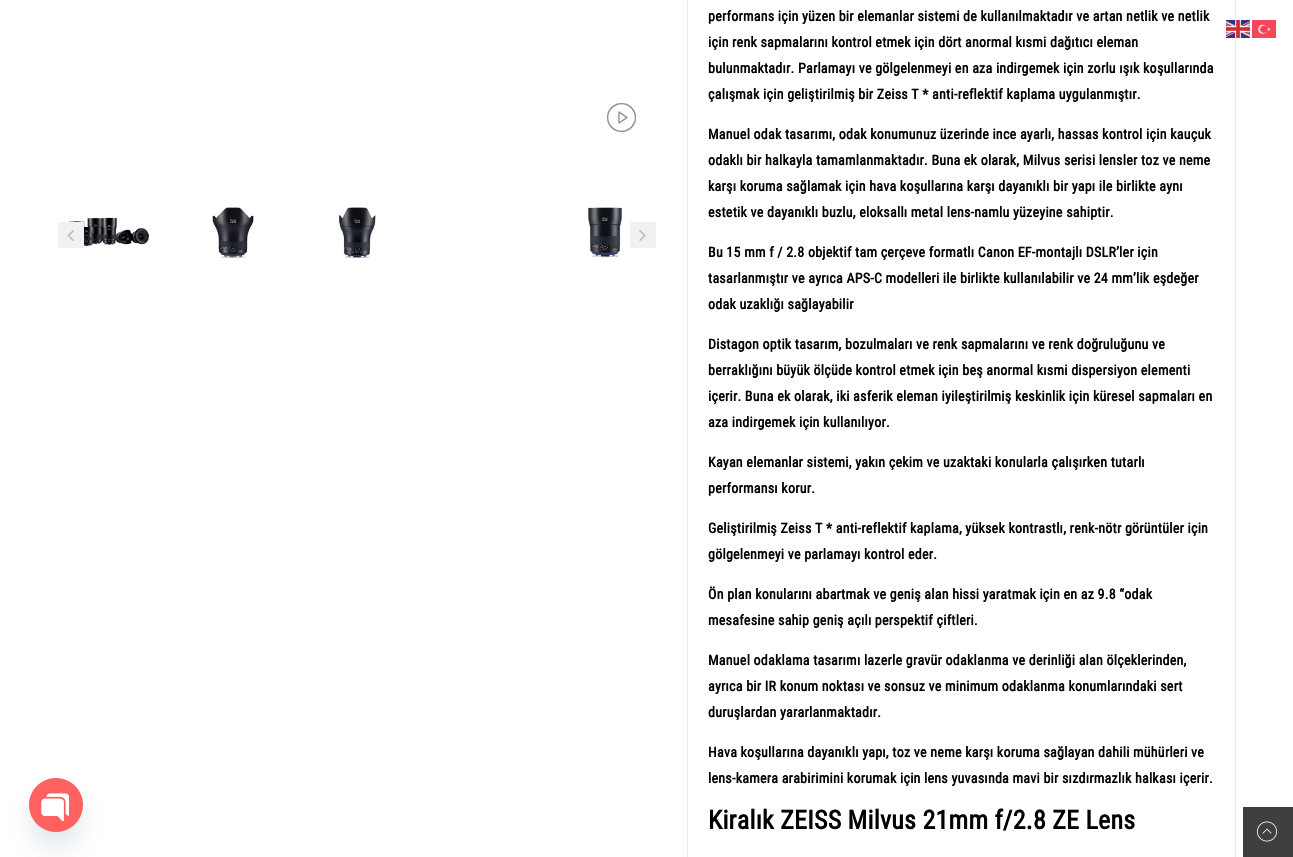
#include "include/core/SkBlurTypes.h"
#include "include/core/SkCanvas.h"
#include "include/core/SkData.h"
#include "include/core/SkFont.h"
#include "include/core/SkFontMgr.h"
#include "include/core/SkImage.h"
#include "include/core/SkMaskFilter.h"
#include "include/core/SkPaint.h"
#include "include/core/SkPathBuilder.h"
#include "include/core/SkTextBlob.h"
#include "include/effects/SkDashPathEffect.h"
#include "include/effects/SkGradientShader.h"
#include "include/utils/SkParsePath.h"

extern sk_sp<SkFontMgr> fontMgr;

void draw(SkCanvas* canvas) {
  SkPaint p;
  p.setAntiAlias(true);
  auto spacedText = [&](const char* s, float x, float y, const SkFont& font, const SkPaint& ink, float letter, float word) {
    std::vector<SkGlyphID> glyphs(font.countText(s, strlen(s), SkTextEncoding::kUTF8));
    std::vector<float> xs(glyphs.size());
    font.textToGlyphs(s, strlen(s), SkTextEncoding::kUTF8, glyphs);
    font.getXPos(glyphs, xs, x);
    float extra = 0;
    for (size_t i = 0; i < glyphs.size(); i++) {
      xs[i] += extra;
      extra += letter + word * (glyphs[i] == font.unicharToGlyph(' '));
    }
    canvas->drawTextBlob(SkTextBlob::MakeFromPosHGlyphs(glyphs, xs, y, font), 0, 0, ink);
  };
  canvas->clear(SK_ColorWHITE);
  canvas->drawImageRect(SkImages::DeferredFromEncodedData(SkData::MakeFromFileName("images/1.png")), SkRect::MakeLTRB(607, 103, 636, 132), SkSamplingOptions());
  canvas->drawImageRect(SkImages::DeferredFromEncodedData(SkData::MakeFromFileName("images/2.png")), SkRect::MakeLTRB(69, 217, 150, 247), SkSamplingOptions());
  canvas->drawImageRect(SkImages::DeferredFromEncodedData(SkData::MakeFromFileName("images/3.png")), SkRect::MakeLTRB(212, 207, 254, 258), SkSamplingOptions());
  canvas->drawImageRect(SkImages::DeferredFromEncodedData(SkData::MakeFromFileName("images/4.png")), SkRect::MakeLTRB(339, 207, 376, 259), SkSamplingOptions());
  canvas->drawImageRect(SkImages::DeferredFromEncodedData(SkData::MakeFromFileName("images/5.png")), SkRect::MakeLTRB(588, 207, 622, 258), SkSamplingOptions());
  p.setColor(SkColorSetRGB(241, 241, 241));
  canvas->drawRect(SkRect::MakeLTRB(58, 222, 84, 248), p);
  canvas->drawImageRect(SkImages::DeferredFromEncodedData(SkData::MakeFromFileName("images/6.png")), SkRect::MakeLTRB(67, 230, 74, 241), SkSamplingOptions());
  canvas->drawRect(SkRect::MakeLTRB(630, 222, 656, 248), p);
  canvas->drawImageRect(SkImages::DeferredFromEncodedData(SkData::MakeFromFileName("images/7.png")), SkRect::MakeLTRB(639, 230, 646, 241), SkSamplingOptions());
  p.setColor(SkColorSetRGB(235, 235, 235));
  canvas->drawRect(SkRect::MakeLTRB(1235, 0, 1236, 857), p);
  canvas->drawRect(SkRect::MakeLTRB(687, 0, 688, 857), p);
  canvas->drawImageRect(SkImages::DeferredFromEncodedData(SkData::MakeFromFileName("images/8.png")), SkRect::MakeLTRB(1226, 20, 1250, 38), SkSamplingOptions());
  canvas->drawImageRect(SkImages::DeferredFromEncodedData(SkData::MakeFromFileName("images/9.png")), SkRect::MakeLTRB(1252, 20, 1276, 38), SkSamplingOptions());
  p.setColor(SkColorSetARGB(41, 73, 104, 126));
  p.setMaskFilter(SkMaskFilter::MakeBlur(kNormal_SkBlurStyle, 12));
  canvas->drawRoundRect(SkRect::MakeLTRB(29, 794, 83, 848), 27, 27, p);
  p.setMaskFilter(nullptr);
  canvas->drawImageRect(SkImages::DeferredFromEncodedData(SkData::MakeFromFileName("images/10.png")), SkRect::MakeLTRB(29, 778, 83, 832), SkSamplingOptions());
  p.setColor(SkColorSetRGB(63, 63, 63));
  canvas->drawRect(SkRect::MakeLTRB(1243, 807, 1293, 857), p);
  canvas->drawImageRect(SkImages::DeferredFromEncodedData(SkData::MakeFromFileName("images/11.png")), SkRect::MakeLTRB(1257, 821, 1277, 842), SkSamplingOptions());
  SkFont font1(fontMgr->matchFamilyStyle("Roboto Condensed", SkFontStyle::Bold()), 14);
  font1.setSubpixel(true);
  p.setColor(SK_ColorBLACK);
  spacedText("performans için yüzen bir elemanlar sistemi de kullanılmaktadır ve artan netlik ve netlik", 708, 21, font1, p, 0.25f, 0);
  spacedText("için renk sapmalarını kontrol etmek için dört anormal kısmi dağıtıcı eleman", 708, 47, font1, p, 0.25f, 0);
  spacedText("bulunmaktadır. Parlamayı ve gölgelenmeyi en aza indirgemek için zorlu ışık koşullarında", 708, 73, font1, p, 0.25f, 0);
  spacedText("çalışmak için geliştirilmiş bir Zeiss T * anti-reflektif kaplama uygulanmıştır.", 708, 99, font1, p, 0.25f, 0);
  spacedText("Manuel odak tasarımı, odak konumunuz üzerinde ince ayarlı, hassas kontrol için kauçuk", 708, 139, font1, p, 0.25f, 0);
  spacedText("odaklı bir halkayla tamamlanmaktadır. Buna ek olarak, Milvus serisi lensler toz ve neme", 708, 165, font1, p, 0.25f, 0);
  spacedText("karşı koruma sağlamak için hava koşullarına karşı dayanıklı bir yapı ile birlikte aynı", 708, 191, font1, p, 0.25f, 0);
  spacedText("estetik ve dayanıklı buzlu, eloksallı metal lens-namlu yüzeyine sahiptir.", 708, 217, font1, p, 0.25f, 0);
  spacedText("Bu 15 mm f / 2.8 objektif tam çerçeve formatlı Canon EF-montajlı DSLR’ler için", 708, 257, font1, p, 0.25f, 0);
  spacedText("tasarlanmıştır ve ayrıca APS-C modelleri ile birlikte kullanılabilir ve 24 mm’lik eşdeğer", 708, 283, font1, p, 0.25f, 0);
  spacedText("odak uzaklığı sağlayabilir", 708, 309, font1, p, 0.25f, 0);
  spacedText("Distagon optik tasarım, bozulmaları ve renk sapmalarını ve renk doğruluğunu ve", 708, 349, font1, p, 0.25f, 0);
  spacedText("berraklığını büyük ölçüde kontrol etmek için beş anormal kısmi dispersiyon elementi", 708, 375, font1, p, 0.25f, 0);
  spacedText("içerir. Buna ek olarak, iki asferik eleman iyileştirilmiş keskinlik için küresel sapmaları en", 708, 401, font1, p, 0.25f, 0);
  spacedText("aza indirgemek için kullanılıyor.", 708, 427, font1, p, 0.25f, 0);
  spacedText("Kayan elemanlar sistemi, yakın çekim ve uzaktaki konularla çalışırken tutarlı", 708, 467, font1, p, 0.25f, 0);
  spacedText("performansı korur.", 708, 493, font1, p, 0.25f, 0);
  spacedText("Geliştirilmiş Zeiss T * anti-reflektif kaplama, yüksek kontrastlı, renk-nötr görüntüler için", 708, 533, font1, p, 0.25f, 0);
  spacedText("gölgelenmeyi ve parlamayı kontrol eder.", 708, 559, font1, p, 0.25f, 0);
  spacedText("Ön plan konularını abartmak ve geniş alan hissi yaratmak için en az 9.8 “odak", 708, 599, font1, p, 0.25f, 0);
  spacedText("mesafesine sahip geniş açılı perspektif çiftleri.", 708, 625, font1, p, 0.25f, 0);
  spacedText("Manuel odaklama tasarımı lazerle gravür odaklanma ve derinliği alan ölçeklerinden,", 708, 665, font1, p, 0.25f, 0);
  spacedText("ayrıca bir IR konum noktası ve sonsuz ve minimum odaklanma konumlarındaki sert", 708, 691, font1, p, 0.25f, 0);
  spacedText("duruşlardan yararlanmaktadır.", 708, 717, font1, p, 0.25f, 0);
  spacedText("Hava koşullarına dayanıklı yapı, toz ve neme karşı koruma sağlayan dahili mühürleri ve", 708, 757, font1, p, 0.25f, 0);
  spacedText("lens-kamera arabirimini korumak için lens yuvasında mavi bir sızdırmazlık halkası içerir.", 708, 783, font1, p, 0.25f, 0);
  SkFont font2(fontMgr->matchFamilyStyle("Roboto Condensed", SkFontStyle::Bold()), 26);
  font2.setSubpixel(true);
  spacedText("Kiralık ZEISS Milvus 21mm f/2.8 ZE Lens", 708, 829, font2, p, 0.25f, 0);
}
